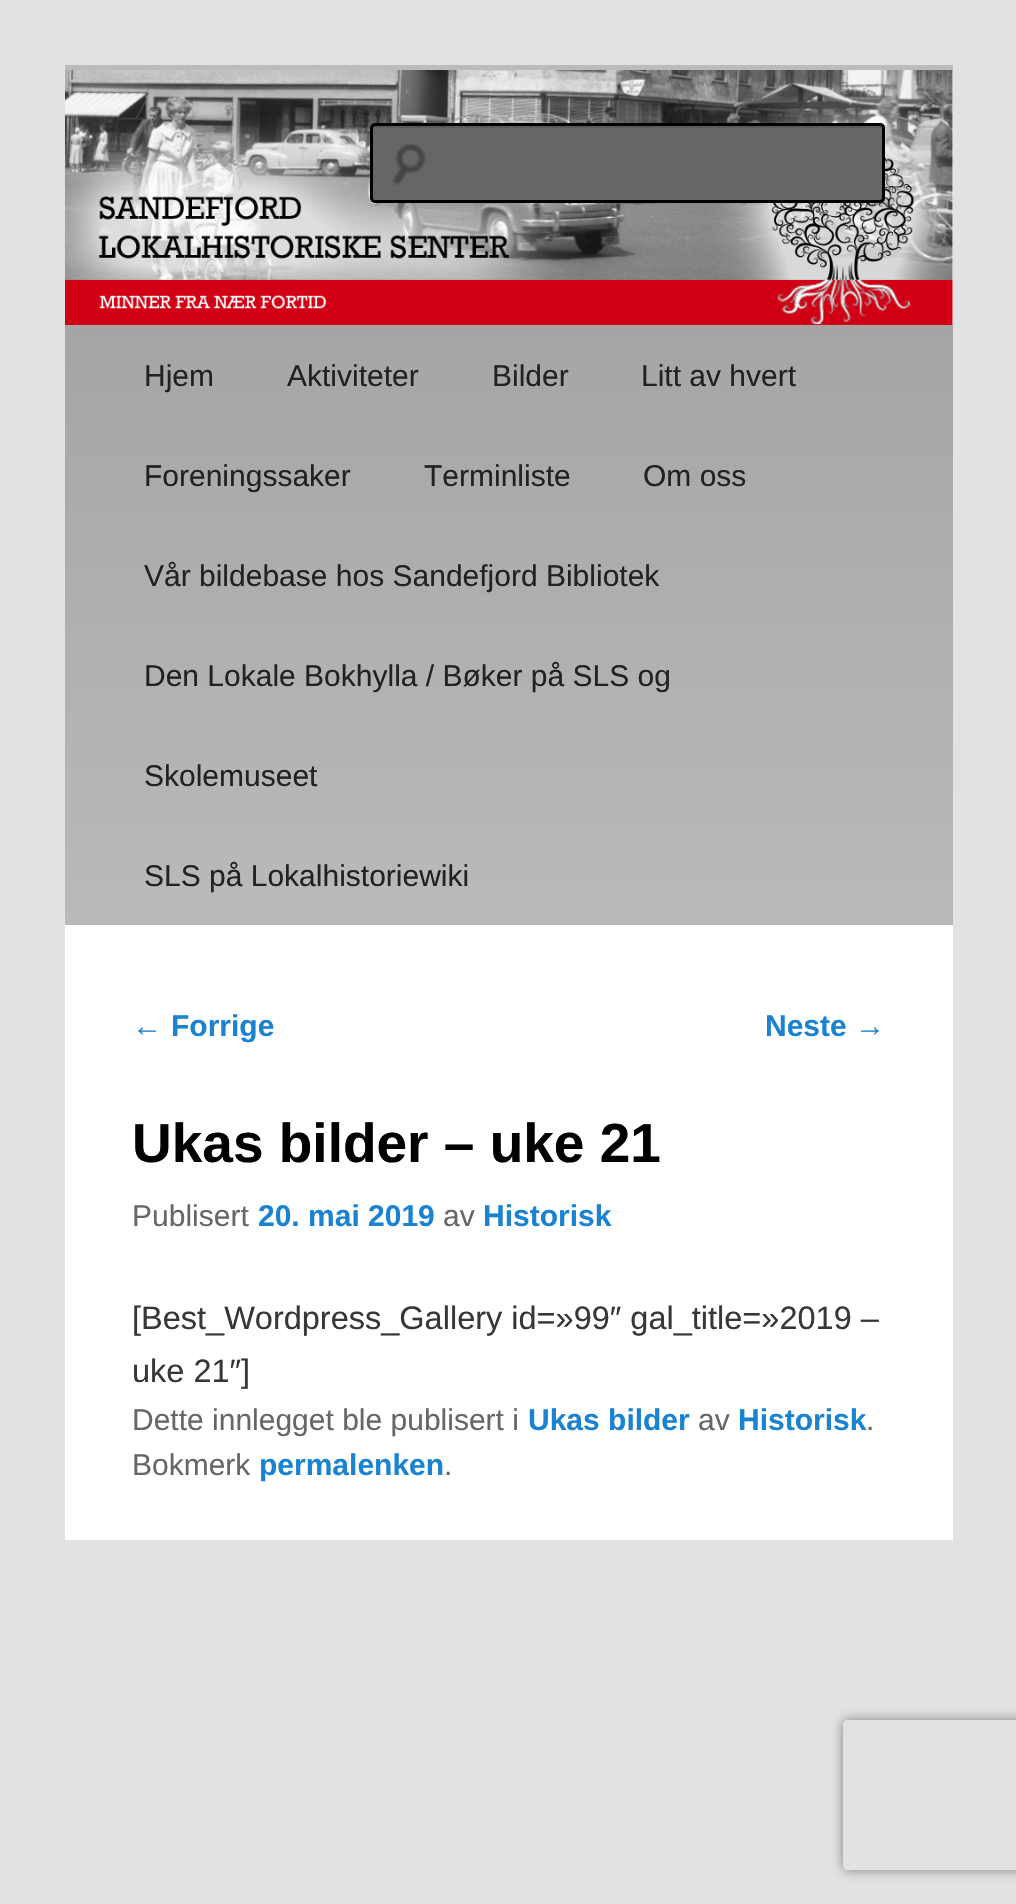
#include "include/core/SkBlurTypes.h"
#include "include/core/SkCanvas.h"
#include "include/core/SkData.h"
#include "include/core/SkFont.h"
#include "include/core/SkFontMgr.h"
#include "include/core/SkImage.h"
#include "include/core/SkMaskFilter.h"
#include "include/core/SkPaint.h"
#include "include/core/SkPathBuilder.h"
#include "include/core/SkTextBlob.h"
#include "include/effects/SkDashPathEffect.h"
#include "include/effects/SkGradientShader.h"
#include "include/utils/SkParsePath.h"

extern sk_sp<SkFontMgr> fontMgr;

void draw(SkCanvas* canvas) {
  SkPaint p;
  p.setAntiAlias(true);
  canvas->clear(SkColorSetRGB(226, 226, 226));
  p.setColor(SK_ColorWHITE);
  canvas->drawRect(SkRect::MakeLTRB(65, 70, 953, 1540), p);
  p.setColor(SkColorSetRGB(187, 187, 187));
  canvas->drawRect(SkRect::MakeLTRB(65, 65, 953, 70), p);
  canvas->drawImageRect(SkImages::DeferredFromEncodedData(SkData::MakeFromFileName("images/1.png")), SkRect::MakeLTRB(65, 70, 953, 325), SkSamplingOptions());
  p.setColor(SkColorSetRGB(102, 102, 102));
  canvas->drawRoundRect(SkRect::MakeLTRB(370, 123, 885, 203), 5, 5, p);
  canvas->drawImageRect(SkImages::DeferredFromEncodedData(SkData::MakeFromFileName("images/2.png")), SkRect::MakeLTRB(392, 143, 426, 186), SkSamplingOptions());
  p.setColor(SkColorSetRGB(92, 92, 92));
  canvas->drawPath(SkPathBuilder().moveTo(375, 128).lineTo(880, 128).cubicTo(881, 128, 882, 129, 882, 130).lineTo(882, 200).cubicTo(883, 199, 883, 198, 883, 198).lineTo(883, 128).cubicTo(883, 126, 882, 125, 880, 125).lineTo(376, 125).cubicTo(374, 125, 373, 126, 373, 128).lineTo(373, 129).close().detach(), p);
  p.setStyle(SkPaint::kStroke_Style);
  p.setStrokeWidth(3);
  p.setColor(SK_ColorBLACK);
  canvas->drawRoundRect(SkRect::MakeLTRB(371.5f, 124.5f, 883.5f, 201.5f), 3.5f, 3.5f, p);
  p.setStyle(SkPaint::kFill_Style);
  {
    const SkColor colors[] = {SkColorSetRGB(165, 165, 165), SkColorSetRGB(186, 186, 186)};
    const float stops[] = {0, 1};
    const SkPoint ends[] = {{509, 325}, {509, 925}};
    p.setShader(SkGradientShader::MakeLinear(ends, colors, stops, 2, SkTileMode::kClamp));
    p.setAlpha(255);
  }
  canvas->drawRect(SkRect::MakeLTRB(65, 325, 953, 925), p);
  canvas->save();
  canvas->clipPath(SkPathBuilder(SkPathFillType::kEvenOdd).moveTo(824, 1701).lineTo(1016, 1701).lineTo(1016, 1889).lineTo(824, 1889).close().moveTo(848, 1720).lineTo(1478, 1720).cubicTo(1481, 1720, 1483, 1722, 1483, 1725).lineTo(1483, 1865).cubicTo(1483, 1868, 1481, 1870, 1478, 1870).lineTo(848, 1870).cubicTo(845, 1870, 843, 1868, 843, 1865).lineTo(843, 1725).cubicTo(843, 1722, 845, 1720, 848, 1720).close().detach(), true);
  p.setShader(nullptr);
  p.setColor(SkColorSetRGB(128, 128, 128));
  p.setMaskFilter(SkMaskFilter::MakeBlur(kNormal_SkBlurStyle, 6));
  canvas->drawRoundRect(SkRect::MakeLTRB(843, 1720, 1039, 1870), 5, 5, p);
  p.setMaskFilter(nullptr);
  canvas->restore();
  SkFont font1(fontMgr->matchFamilyStyle("Liberation Sans", SkFontStyle::Normal()), 30);
  font1.setSubpixel(true);
  p.setColor(SkColorSetRGB(34, 34, 34));
  canvas->drawString("Hjem", 144, 386, font1, p);
  canvas->drawString("Aktiviteter", 287, 386, font1, p);
  canvas->drawString("Bilder", 492, 386, font1, p);
  canvas->drawString("Litt av hvert", 641, 386, font1, p);
  canvas->drawString("Foreningssaker", 144, 486, font1, p);
  canvas->drawString("Terminliste", 424, 486, font1, p);
  canvas->drawString("Om oss", 643, 486, font1, p);
  canvas->drawString("Vår bildebase hos Sandefjord Bibliotek", 144, 586, font1, p);
  canvas->drawString("Den Lokale Bokhylla / Bøker på SLS og", 144, 686, font1, p);
  canvas->drawString("Skolemuseet", 144, 786, font1, p);
  canvas->drawString("SLS på Lokalhistoriewiki", 144, 886, font1, p);
  p.setColor(SkColorSetRGB(25, 130, 209));
  canvas->drawString("←", 132, 1036, font1, p);
  SkFont font2(fontMgr->matchFamilyStyle("Liberation Sans", SkFontStyle::Bold()), 30);
  font2.setSubpixel(true);
  canvas->drawString("Forrige", 171, 1036, font2, p);
  canvas->drawString("Neste", 765, 1036, font2, p);
  canvas->drawString("→", 855, 1036, font1, p);
  SkFont font3(fontMgr->matchFamilyStyle("Liberation Sans", SkFontStyle::Bold()), 55);
  font3.setSubpixel(true);
  p.setColor(SK_ColorBLACK);
  canvas->drawString("Ukas bilder – uke 21", 132, 1162, font3, p);
  p.setColor(SkColorSetRGB(102, 102, 102));
  canvas->drawString("Publisert", 132, 1226, font1, p);
  p.setColor(SkColorSetRGB(25, 130, 209));
  canvas->drawString("20. mai 2019", 258, 1226, font2, p);
  p.setColor(SkColorSetRGB(102, 102, 102));
  canvas->drawString("av", 443, 1226, font1, p);
  p.setColor(SkColorSetRGB(25, 130, 209));
  canvas->drawString("Historisk", 483, 1226, font2, p);
  SkFont font4(fontMgr->matchFamilyStyle("Liberation Sans", SkFontStyle::Normal()), 32.5f);
  font4.setSubpixel(true);
  p.setColor(SkColorSetRGB(55, 55, 55));
  canvas->drawString("[Best_Wordpress_Gallery id=»99″ gal_title=»2019 –", 132, 1329, font4, p);
  canvas->drawString("uke 21″]", 132, 1382, font4, p);
  p.setColor(SkColorSetRGB(102, 102, 102));
  canvas->drawString("Dette innlegget ble publisert i", 132, 1430, font1, p);
  p.setColor(SkColorSetRGB(25, 130, 209));
  canvas->drawString("Ukas bilder", 528, 1430, font2, p);
  p.setColor(SkColorSetRGB(102, 102, 102));
  canvas->drawString("av", 698, 1430, font1, p);
  p.setColor(SkColorSetRGB(25, 130, 209));
  canvas->drawString("Historisk", 738, 1430, font2, p);
  p.setColor(SkColorSetRGB(102, 102, 102));
  canvas->drawString(".", 866, 1430, font1, p);
  canvas->drawString("Bokmerk", 132, 1475, font1, p);
  p.setColor(SkColorSetRGB(25, 130, 209));
  canvas->drawString("permalenken", 259, 1475, font2, p);
  p.setColor(SkColorSetRGB(102, 102, 102));
  canvas->drawString(".", 444, 1475, font1, p);
}
